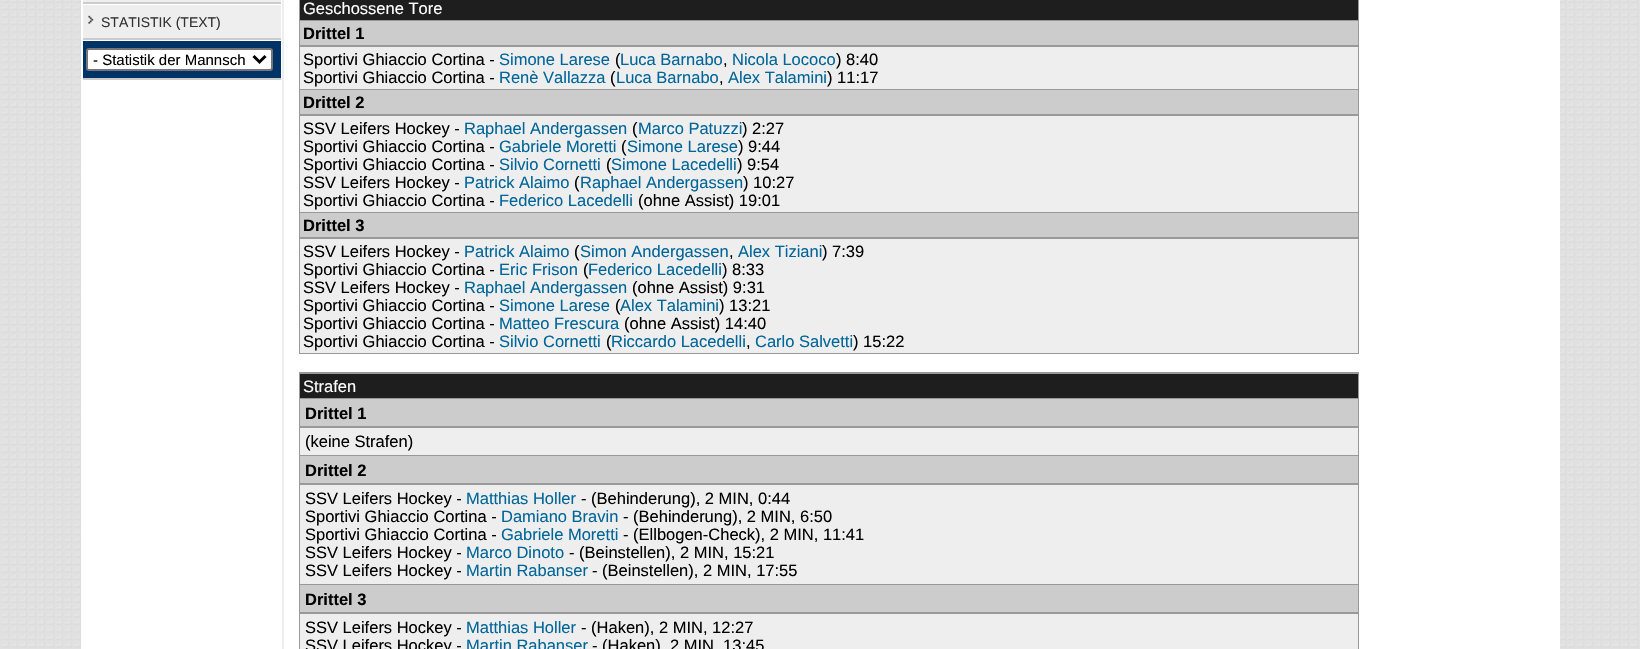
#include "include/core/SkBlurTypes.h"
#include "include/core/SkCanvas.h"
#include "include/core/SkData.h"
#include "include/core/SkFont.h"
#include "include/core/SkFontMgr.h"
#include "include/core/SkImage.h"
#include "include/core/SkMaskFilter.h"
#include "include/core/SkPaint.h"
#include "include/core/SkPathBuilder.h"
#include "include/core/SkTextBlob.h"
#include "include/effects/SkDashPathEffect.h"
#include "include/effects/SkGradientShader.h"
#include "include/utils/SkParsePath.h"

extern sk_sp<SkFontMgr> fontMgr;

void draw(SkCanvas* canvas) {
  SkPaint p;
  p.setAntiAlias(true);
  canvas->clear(SK_ColorWHITE);
  canvas->drawImageRect(SkImages::DeferredFromEncodedData(SkData::MakeFromFileName("images/1.png")), SkRect::MakeLTRB(0, 0, 1640, 649), SkSamplingOptions());
  p.setColor(SK_ColorWHITE);
  canvas->drawRect(SkRect::MakeLTRB(81, 0, 1560, 649), p);
  p.setColor(SkColorSetRGB(238, 238, 238));
  canvas->drawRect(SkRect::MakeLTRB(282, 0, 284, 649), p);
  canvas->drawRect(SkRect::MakeLTRB(83, 0, 281, 2), p);
  p.setColor(SkColorSetRGB(204, 204, 204));
  canvas->drawRect(SkRect::MakeLTRB(83, 2, 281, 4), p);
  p.setColor(SkColorSetRGB(238, 238, 238));
  canvas->drawRect(SkRect::MakeLTRB(83, 5, 281, 38), p);
  p.setColor(SkColorSetRGB(204, 204, 204));
  canvas->drawRect(SkRect::MakeLTRB(83, 38, 281, 40), p);
  canvas->drawImageRect(SkImages::DeferredFromEncodedData(SkData::MakeFromFileName("images/2.png")), SkRect::MakeLTRB(88, 15, 94, 24), SkSamplingOptions());
  p.setColor(SkColorSetRGB(0, 51, 102));
  canvas->drawRect(SkRect::MakeLTRB(83, 41, 281, 78), p);
  p.setColor(SkColorSetRGB(204, 204, 204));
  canvas->drawRect(SkRect::MakeLTRB(83, 78, 281, 80), p);
  p.setColor(SK_ColorWHITE);
  canvas->drawRoundRect(SkRect::MakeLTRB(87, 49, 272, 70), 2, 2, p);
  p.setStyle(SkPaint::kStroke_Style);
  p.setStrokeWidth(2);
  p.setColor(SkColorSetRGB(118, 118, 118));
  canvas->drawRoundRect(SkRect::MakeLTRB(87, 49, 272, 70), 2, 2, p);
  p.setStrokeWidth(3);
  p.setColor(SK_ColorBLACK);
  canvas->drawPath(SkPathBuilder().moveTo(253.5f, 56).lineTo(259.5f, 62).lineTo(265.5f, 56).detach(), p);
  p.setStyle(SkPaint::kFill_Style);
  p.setColor(SkColorSetRGB(153, 153, 153));
  canvas->drawRect(SkRect::MakeLTRB(299, 0, 1359, 354), p);
  p.setColor(SkColorSetRGB(30, 30, 30));
  canvas->drawRect(SkRect::MakeLTRB(300, 0, 1358, 20), p);
  p.setColor(SkColorSetRGB(204, 204, 204));
  canvas->drawRect(SkRect::MakeLTRB(300, 21, 1358, 45), p);
  p.setColor(SkColorSetRGB(238, 238, 238));
  canvas->drawRect(SkRect::MakeLTRB(300, 47, 1358, 89), p);
  p.setColor(SkColorSetRGB(204, 204, 204));
  canvas->drawRect(SkRect::MakeLTRB(300, 90, 1358, 114), p);
  p.setColor(SkColorSetRGB(238, 238, 238));
  canvas->drawRect(SkRect::MakeLTRB(300, 116, 1358, 212), p);
  p.setColor(SkColorSetRGB(204, 204, 204));
  canvas->drawRect(SkRect::MakeLTRB(300, 213, 1358, 237), p);
  p.setColor(SkColorSetRGB(238, 238, 238));
  canvas->drawRect(SkRect::MakeLTRB(300, 239, 1358, 353), p);
  p.setColor(SkColorSetRGB(153, 153, 153));
  canvas->drawRect(SkRect::MakeLTRB(299, 372, 1359, 649), p);
  p.setColor(SkColorSetRGB(30, 30, 30));
  canvas->drawRect(SkRect::MakeLTRB(300, 374, 1358, 398), p);
  p.setColor(SkColorSetRGB(204, 204, 204));
  canvas->drawRect(SkRect::MakeLTRB(300, 399, 1358, 426), p);
  p.setColor(SkColorSetRGB(238, 238, 238));
  canvas->drawRect(SkRect::MakeLTRB(300, 428, 1358, 455), p);
  p.setColor(SkColorSetRGB(204, 204, 204));
  canvas->drawRect(SkRect::MakeLTRB(300, 456, 1358, 483), p);
  p.setColor(SkColorSetRGB(238, 238, 238));
  canvas->drawRect(SkRect::MakeLTRB(300, 485, 1358, 584), p);
  p.setColor(SkColorSetRGB(204, 204, 204));
  canvas->drawRect(SkRect::MakeLTRB(300, 585, 1358, 612), p);
  p.setColor(SkColorSetRGB(238, 238, 238));
  canvas->drawRect(SkRect::MakeLTRB(300, 614, 1358, 649), p);
  SkFont font1(fontMgr->matchFamilyStyle("Liberation Sans", SkFontStyle::Normal()), 14);
  font1.setSubpixel(true);
  p.setColor(SkColorSetRGB(51, 51, 51));
  canvas->drawString("STATISTIK (TEXT)", 101, 27, font1, p);
  SkFont font2(fontMgr->matchFamilyStyle("Liberation Sans", SkFontStyle::Normal()), 15);
  font2.setSubpixel(true);
  p.setColor(SK_ColorBLACK);
  canvas->drawString("- Statistik der Mannsch", 93, 65, font2, p);
  SkFont font3(fontMgr->matchFamilyStyle("Liberation Sans", SkFontStyle::Normal()), 16.5f);
  font3.setSubpixel(true);
  p.setColor(SK_ColorWHITE);
  canvas->drawString("Geschossene Tore", 303, 14, font3, p);
  SkFont font4(fontMgr->matchFamilyStyle("Liberation Sans", SkFontStyle::Bold()), 16.5f);
  font4.setSubpixel(true);
  p.setColor(SK_ColorBLACK);
  canvas->drawString("Drittel 1", 303, 39, font4, p);
  canvas->drawString("Sportivi Ghiaccio Cortina -", 303, 65, font3, p);
  p.setColor(SkColorSetRGB(0, 102, 153));
  canvas->drawString("Simone Larese", 499, 65, font3, p);
  p.setColor(SK_ColorBLACK);
  canvas->drawString("(", 615, 65, font3, p);
  p.setColor(SkColorSetRGB(0, 102, 153));
  canvas->drawString("Luca Barnabo", 620, 65, font3, p);
  p.setColor(SK_ColorBLACK);
  canvas->drawString(",", 723, 65, font3, p);
  p.setColor(SkColorSetRGB(0, 102, 153));
  canvas->drawString("Nicola Lococo", 732, 65, font3, p);
  p.setColor(SK_ColorBLACK);
  canvas->drawString(") 8:40", 836, 65, font3, p);
  canvas->drawString("Sportivi Ghiaccio Cortina -", 303, 83, font3, p);
  p.setColor(SkColorSetRGB(0, 102, 153));
  canvas->drawString("Renè Vallazza", 499, 83, font3, p);
  p.setColor(SK_ColorBLACK);
  canvas->drawString("(", 610, 83, font3, p);
  p.setColor(SkColorSetRGB(0, 102, 153));
  canvas->drawString("Luca Barnabo", 616, 83, font3, p);
  p.setColor(SK_ColorBLACK);
  canvas->drawString(",", 719, 83, font3, p);
  p.setColor(SkColorSetRGB(0, 102, 153));
  canvas->drawString("Alex Talamini", 728, 83, font3, p);
  p.setColor(SK_ColorBLACK);
  canvas->drawString(") 11:17", 827, 83, font3, p);
  canvas->drawString("Drittel 2", 303, 108, font4, p);
  canvas->drawString("SSV Leifers Hockey -", 303, 134, font3, p);
  p.setColor(SkColorSetRGB(0, 102, 153));
  canvas->drawString("Raphael Andergassen", 464, 134, font3, p);
  p.setColor(SK_ColorBLACK);
  canvas->drawString("(", 632, 134, font3, p);
  p.setColor(SkColorSetRGB(0, 102, 153));
  canvas->drawString("Marco Patuzzi", 638, 134, font3, p);
  p.setColor(SK_ColorBLACK);
  canvas->drawString(") 2:27", 742, 134, font3, p);
  canvas->drawString("Sportivi Ghiaccio Cortina -", 303, 152, font3, p);
  p.setColor(SkColorSetRGB(0, 102, 153));
  canvas->drawString("Gabriele Moretti", 499, 152, font3, p);
  p.setColor(SK_ColorBLACK);
  canvas->drawString("(", 621, 152, font3, p);
  p.setColor(SkColorSetRGB(0, 102, 153));
  canvas->drawString("Simone Larese", 627, 152, font3, p);
  p.setColor(SK_ColorBLACK);
  canvas->drawString(") 9:44", 738, 152, font3, p);
  canvas->drawString("Sportivi Ghiaccio Cortina -", 303, 170, font3, p);
  p.setColor(SkColorSetRGB(0, 102, 153));
  canvas->drawString("Silvio Cornetti", 499, 170, font3, p);
  p.setColor(SK_ColorBLACK);
  canvas->drawString("(", 606, 170, font3, p);
  p.setColor(SkColorSetRGB(0, 102, 153));
  canvas->drawString("Simone Lacedelli", 611, 170, font3, p);
  p.setColor(SK_ColorBLACK);
  canvas->drawString(") 9:54", 737, 170, font3, p);
  canvas->drawString("SSV Leifers Hockey -", 303, 188, font3, p);
  p.setColor(SkColorSetRGB(0, 102, 153));
  canvas->drawString("Patrick Alaimo", 464, 188, font3, p);
  p.setColor(SK_ColorBLACK);
  canvas->drawString("(", 574, 188, font3, p);
  p.setColor(SkColorSetRGB(0, 102, 153));
  canvas->drawString("Raphael Andergassen", 580, 188, font3, p);
  p.setColor(SK_ColorBLACK);
  canvas->drawString(") 10:27", 743, 188, font3, p);
  canvas->drawString("Sportivi Ghiaccio Cortina -", 303, 206, font3, p);
  p.setColor(SkColorSetRGB(0, 102, 153));
  canvas->drawString("Federico Lacedelli", 499, 206, font3, p);
  p.setColor(SK_ColorBLACK);
  canvas->drawString("(ohne Assist) 19:01", 638, 206, font3, p);
  canvas->drawString("Drittel 3", 303, 231, font4, p);
  canvas->drawString("SSV Leifers Hockey -", 303, 257, font3, p);
  p.setColor(SkColorSetRGB(0, 102, 153));
  canvas->drawString("Patrick Alaimo", 464, 257, font3, p);
  p.setColor(SK_ColorBLACK);
  canvas->drawString("(", 574, 257, font3, p);
  p.setColor(SkColorSetRGB(0, 102, 153));
  canvas->drawString("Simon Andergassen", 580, 257, font3, p);
  p.setColor(SK_ColorBLACK);
  canvas->drawString(",", 729, 257, font3, p);
  p.setColor(SkColorSetRGB(0, 102, 153));
  canvas->drawString("Alex Tiziani", 738, 257, font3, p);
  p.setColor(SK_ColorBLACK);
  canvas->drawString(") 7:39", 822, 257, font3, p);
  canvas->drawString("Sportivi Ghiaccio Cortina -", 303, 275, font3, p);
  p.setColor(SkColorSetRGB(0, 102, 153));
  canvas->drawString("Eric Frison", 499, 275, font3, p);
  p.setColor(SK_ColorBLACK);
  canvas->drawString("(", 583, 275, font3, p);
  p.setColor(SkColorSetRGB(0, 102, 153));
  canvas->drawString("Federico Lacedelli", 588, 275, font3, p);
  p.setColor(SK_ColorBLACK);
  canvas->drawString(") 8:33", 722, 275, font3, p);
  canvas->drawString("SSV Leifers Hockey -", 303, 293, font3, p);
  p.setColor(SkColorSetRGB(0, 102, 153));
  canvas->drawString("Raphael Andergassen", 464, 293, font3, p);
  p.setColor(SK_ColorBLACK);
  canvas->drawString("(ohne Assist) 9:31", 632, 293, font3, p);
  canvas->drawString("Sportivi Ghiaccio Cortina -", 303, 311, font3, p);
  p.setColor(SkColorSetRGB(0, 102, 153));
  canvas->drawString("Simone Larese", 499, 311, font3, p);
  p.setColor(SK_ColorBLACK);
  canvas->drawString("(", 615, 311, font3, p);
  p.setColor(SkColorSetRGB(0, 102, 153));
  canvas->drawString("Alex Talamini", 620, 311, font3, p);
  p.setColor(SK_ColorBLACK);
  canvas->drawString(") 13:21", 719, 311, font3, p);
  canvas->drawString("Sportivi Ghiaccio Cortina -", 303, 329, font3, p);
  p.setColor(SkColorSetRGB(0, 102, 153));
  canvas->drawString("Matteo Frescura", 499, 329, font3, p);
  p.setColor(SK_ColorBLACK);
  canvas->drawString("(ohne Assist) 14:40", 624, 329, font3, p);
  canvas->drawString("Sportivi Ghiaccio Cortina -", 303, 347, font3, p);
  p.setColor(SkColorSetRGB(0, 102, 153));
  canvas->drawString("Silvio Cornetti", 499, 347, font3, p);
  p.setColor(SK_ColorBLACK);
  canvas->drawString("(", 606, 347, font3, p);
  p.setColor(SkColorSetRGB(0, 102, 153));
  canvas->drawString("Riccardo Lacedelli", 611, 347, font3, p);
  p.setColor(SK_ColorBLACK);
  canvas->drawString(",", 746, 347, font3, p);
  p.setColor(SkColorSetRGB(0, 102, 153));
  canvas->drawString("Carlo Salvetti", 755, 347, font3, p);
  p.setColor(SK_ColorBLACK);
  canvas->drawString(") 15:22", 853, 347, font3, p);
  p.setColor(SK_ColorWHITE);
  canvas->drawString("Strafen", 303, 392, font3, p);
  p.setColor(SK_ColorBLACK);
  canvas->drawString("Drittel 1", 305, 419, font4, p);
  canvas->drawString("(keine Strafen)", 305, 447, font3, p);
  canvas->drawString("Drittel 2", 305, 476, font4, p);
  canvas->drawString("SSV Leifers Hockey -", 305, 504, font3, p);
  p.setColor(SkColorSetRGB(0, 102, 153));
  canvas->drawString("Matthias Holler", 466, 504, font3, p);
  p.setColor(SK_ColorBLACK);
  canvas->drawString("- (Behinderung), 2 MIN, 0:44", 581, 504, font3, p);
  canvas->drawString("Sportivi Ghiaccio Cortina -", 305, 522, font3, p);
  p.setColor(SkColorSetRGB(0, 102, 153));
  canvas->drawString("Damiano Bravin", 501, 522, font3, p);
  p.setColor(SK_ColorBLACK);
  canvas->drawString("- (Behinderung), 2 MIN, 6:50", 623, 522, font3, p);
  canvas->drawString("Sportivi Ghiaccio Cortina -", 305, 540, font3, p);
  p.setColor(SkColorSetRGB(0, 102, 153));
  canvas->drawString("Gabriele Moretti", 501, 540, font3, p);
  p.setColor(SK_ColorBLACK);
  canvas->drawString("- (Ellbogen-Check), 2 MIN, 11:41", 623, 540, font3, p);
  canvas->drawString("SSV Leifers Hockey -", 305, 558, font3, p);
  p.setColor(SkColorSetRGB(0, 102, 153));
  canvas->drawString("Marco Dinoto", 466, 558, font3, p);
  p.setColor(SK_ColorBLACK);
  canvas->drawString("- (Beinstellen), 2 MIN, 15:21", 569, 558, font3, p);
  canvas->drawString("SSV Leifers Hockey -", 305, 576, font3, p);
  p.setColor(SkColorSetRGB(0, 102, 153));
  canvas->drawString("Martin Rabanser", 466, 576, font3, p);
  p.setColor(SK_ColorBLACK);
  canvas->drawString("- (Beinstellen), 2 MIN, 17:55", 592, 576, font3, p);
  canvas->drawString("Drittel 3", 305, 605, font4, p);
  canvas->drawString("SSV Leifers Hockey -", 305, 633, font3, p);
  p.setColor(SkColorSetRGB(0, 102, 153));
  canvas->drawString("Matthias Holler", 466, 633, font3, p);
  p.setColor(SK_ColorBLACK);
  canvas->drawString("- (Haken), 2 MIN, 12:27", 581, 633, font3, p);
  canvas->drawString("SSV Leifers Hockey -", 305, 651, font3, p);
  p.setColor(SkColorSetRGB(0, 102, 153));
  canvas->drawString("Martin Rabanser", 466, 651, font3, p);
  p.setColor(SK_ColorBLACK);
  canvas->drawString("- (Haken), 2 MIN, 13:45", 592, 651, font3, p);
}
